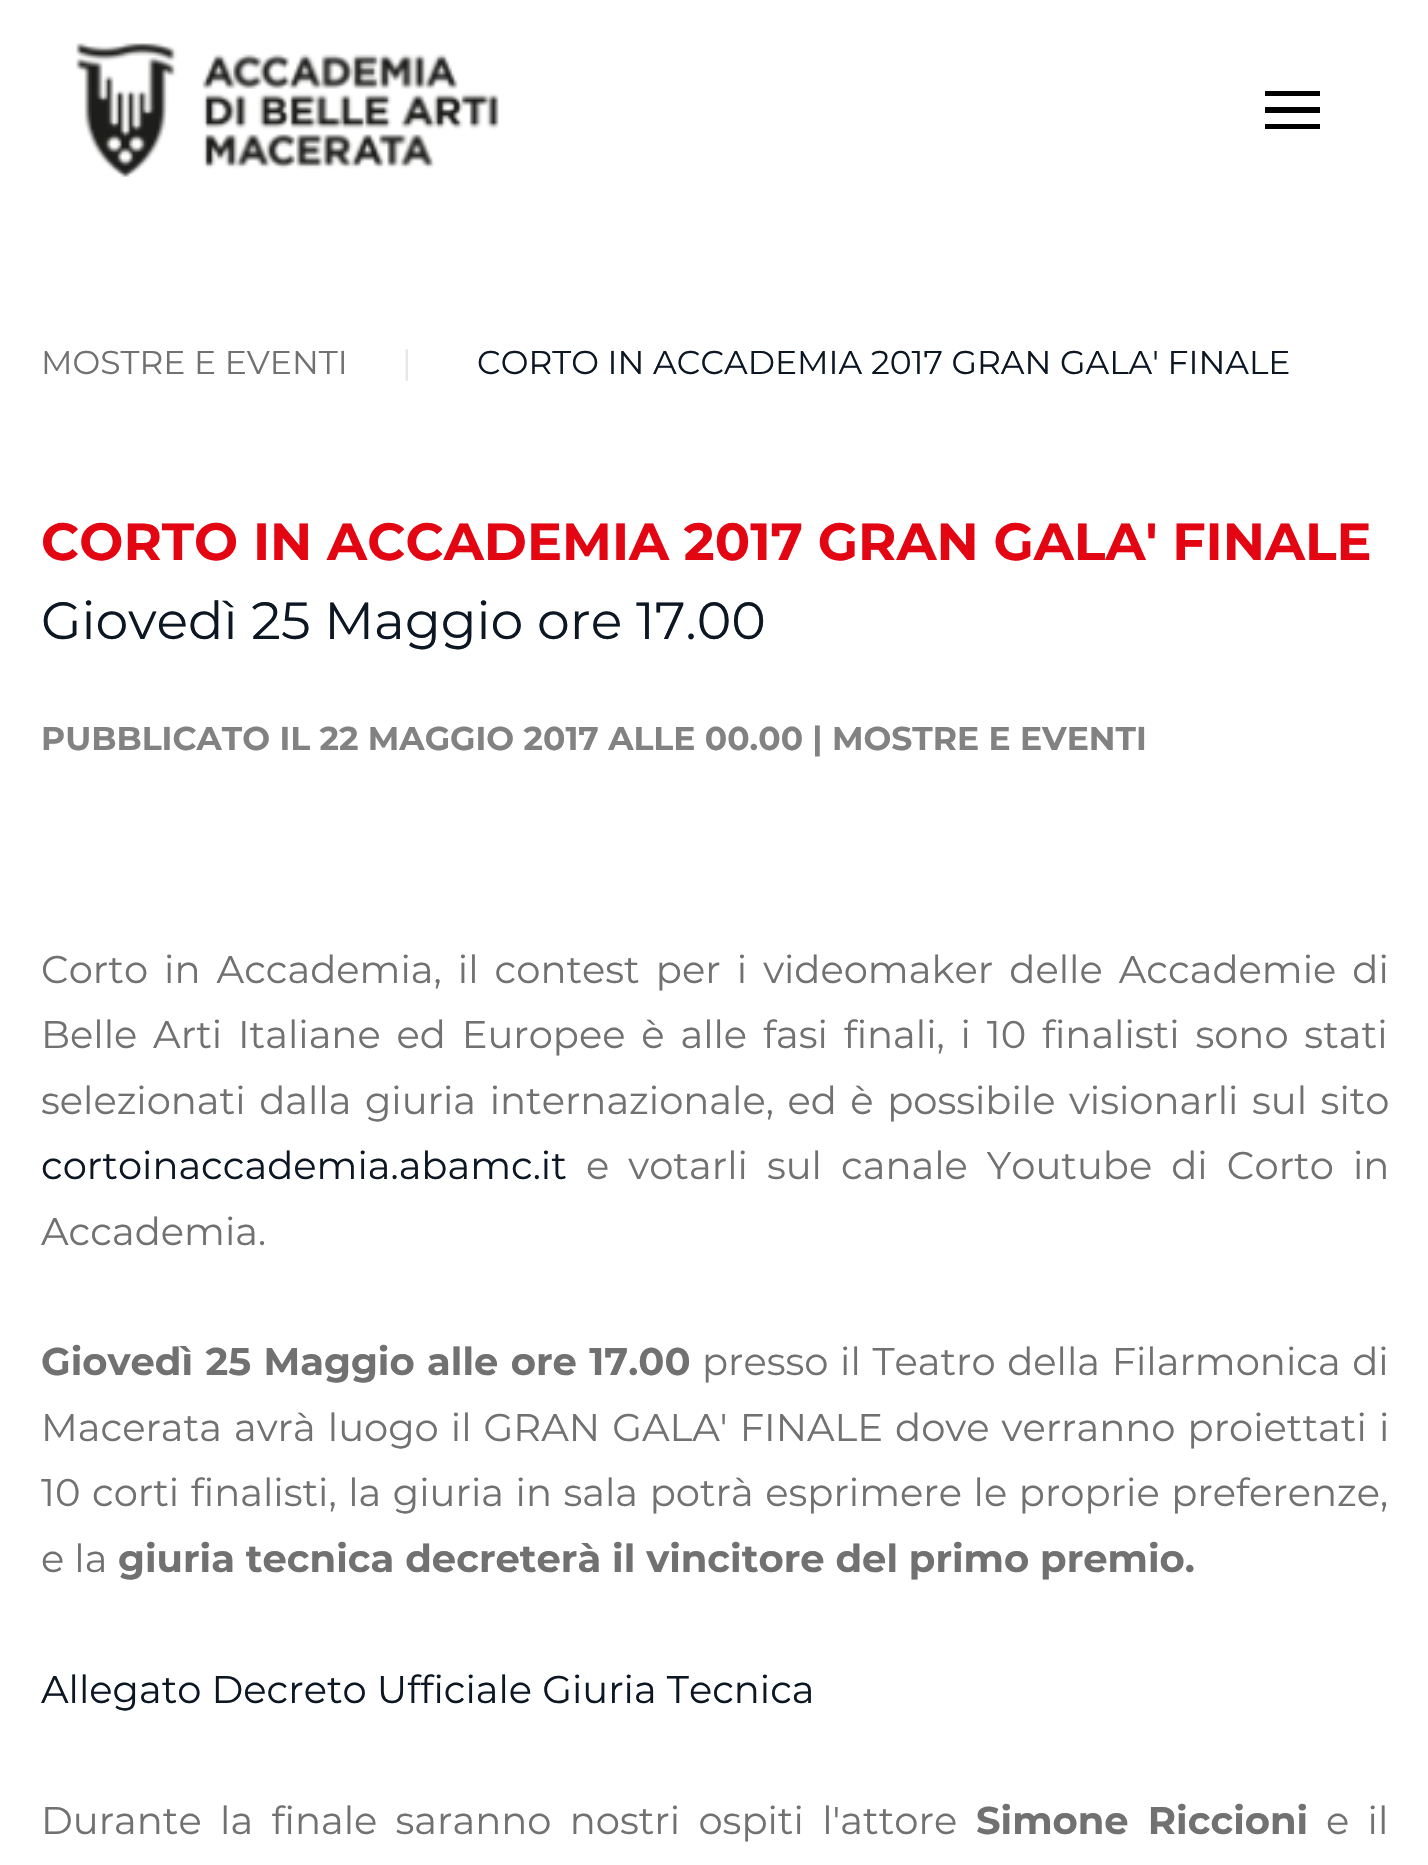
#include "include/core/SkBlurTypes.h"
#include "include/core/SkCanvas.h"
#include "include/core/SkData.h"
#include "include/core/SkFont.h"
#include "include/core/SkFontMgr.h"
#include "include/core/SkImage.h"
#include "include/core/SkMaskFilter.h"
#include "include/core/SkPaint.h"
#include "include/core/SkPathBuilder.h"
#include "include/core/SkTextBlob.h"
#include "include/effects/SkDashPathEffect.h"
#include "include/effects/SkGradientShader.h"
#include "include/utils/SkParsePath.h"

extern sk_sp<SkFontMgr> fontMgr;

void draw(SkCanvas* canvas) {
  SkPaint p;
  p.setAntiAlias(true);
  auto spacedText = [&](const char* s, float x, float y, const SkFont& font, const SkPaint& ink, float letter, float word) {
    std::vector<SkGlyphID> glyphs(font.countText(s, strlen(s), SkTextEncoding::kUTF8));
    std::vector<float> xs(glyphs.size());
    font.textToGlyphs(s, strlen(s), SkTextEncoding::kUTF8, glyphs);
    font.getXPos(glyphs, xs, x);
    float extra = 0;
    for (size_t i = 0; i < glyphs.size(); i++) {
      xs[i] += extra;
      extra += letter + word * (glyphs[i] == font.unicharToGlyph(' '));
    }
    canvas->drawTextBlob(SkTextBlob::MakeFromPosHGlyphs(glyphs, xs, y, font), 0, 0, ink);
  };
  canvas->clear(SK_ColorWHITE);
  canvas->drawImageRect(SkImages::DeferredFromEncodedData(SkData::MakeFromFileName("images/1.png")), SkRect::MakeLTRB(76, 43, 499, 177), SkSamplingOptions());
  p.setColor(SK_ColorBLACK);
  canvas->drawRect(SkRect::MakeLTRB(1265, 91, 1320, 96), p);
  canvas->drawRect(SkRect::MakeLTRB(1265, 107, 1320, 113), p);
  canvas->drawRect(SkRect::MakeLTRB(1265, 124, 1320, 129), p);
  SkFont font1(fontMgr->matchFamilyStyle("Montserrat", SkFontStyle(100, SkFontStyle::kNormal_Width, SkFontStyle::kUpright_Slant)), 33);
  font1.setSubpixel(true);
  p.setColor(SkColorSetRGB(113, 113, 113));
  canvas->drawString("MOSTRE E EVENTI", 41, 374, font1, p);
  p.setColor(SkColorSetRGB(230, 230, 230));
  canvas->drawString("|", 402, 374, font1, p);
  p.setColor(SkColorSetRGB(13, 23, 36));
  canvas->drawString("CORTO IN ACCADEMIA 2017 GRAN GALA' FINALE", 477, 374, font1, p);
  SkFont font2(fontMgr->matchFamilyStyle("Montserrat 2", SkFontStyle(100, SkFontStyle::kNormal_Width, SkFontStyle::kUpright_Slant)), 52.25f);
  font2.setSubpixel(true);
  p.setColor(SkColorSetRGB(228, 5, 19));
  canvas->drawString("CORTO IN ACCADEMIA 2017 GRAN GALA' FINALE", 41, 560, font2, p);
  SkFont font3(fontMgr->matchFamilyStyle("Montserrat", SkFontStyle(100, SkFontStyle::kNormal_Width, SkFontStyle::kUpright_Slant)), 52.25f);
  font3.setSubpixel(true);
  p.setColor(SkColorSetRGB(13, 23, 36));
  canvas->drawString("Giovedì 25 Maggio ore 17.00", 41, 639, font3, p);
  SkFont font4(fontMgr->matchFamilyStyle("Montserrat 2", SkFontStyle(100, SkFontStyle::kNormal_Width, SkFontStyle::kUpright_Slant)), 33);
  font4.setSubpixel(true);
  p.setColor(SkColorSetRGB(130, 130, 130));
  canvas->drawString("PUBBLICATO IL 22 MAGGIO 2017 ALLE 00.00 | MOSTRE E EVENTI", 41, 750, font4, p);
  SkFont font5(fontMgr->matchFamilyStyle("Montserrat", SkFontStyle(100, SkFontStyle::kNormal_Width, SkFontStyle::kUpright_Slant)), 38.5f);
  font5.setSubpixel(true);
  p.setColor(SkColorSetRGB(113, 113, 113));
  spacedText("Corto in Accademia, il contest per i videomaker delle Accademie di", 41, 983, font5, p, 0, 6);
  spacedText("Belle Arti Italiane ed Europee è alle fasi finali, i 10 finalisti sono stati", 41, 1048, font5, p, 0, 5.75f);
  spacedText("selezionati dalla giuria internazionale, ed è possibile visionarli sul sito", 41, 1114, font5, p, 0, 3.5f);
  p.setColor(SkColorSetRGB(13, 23, 36));
  canvas->drawString("cortoinaccademia.abamc.it", 41, 1179, font5, p);
  p.setColor(SkColorSetRGB(113, 113, 113));
  spacedText("e votarli sul canale Youtube di Corto in", 586, 1179, font5, p, 0, 9);
  canvas->drawString("Accademia.", 41, 1245, font5, p);
  SkFont font6(fontMgr->matchFamilyStyle("Montserrat 2", SkFontStyle(100, SkFontStyle::kNormal_Width, SkFontStyle::kUpright_Slant)), 38.5f);
  font6.setSubpixel(true);
  spacedText("Giovedì 25 Maggio alle ore 17.00", 41, 1375, font6, p, 0, 1.5f);
  spacedText("presso il Teatro della Filarmonica di", 702, 1375, font5, p, 0, 1.5f);
  spacedText("Macerata avrà luogo il GRAN GALA' FINALE dove verranno proiettati i", 41, 1441, font5, p, 0, 2);
  spacedText("10 corti finalisti, la giuria in sala potrà esprimere le proprie preferenze,", 41, 1506, font5, p, 0, 1.5f);
  canvas->drawString("e la", 41, 1572, font5, p);
  canvas->drawString("giuria tecnica decreterà il vincitore del primo premio.", 118, 1572, font6, p);
  p.setColor(SkColorSetRGB(13, 23, 36));
  canvas->drawString("Allegato Decreto Ufficiale Giuria Tecnica", 41, 1703, font5, p);
  p.setColor(SkColorSetRGB(113, 113, 113));
  spacedText("Durante la finale saranno nostri ospiti l'attore", 41, 1834, font5, p, 0, 8.25f);
  spacedText("Simone Riccioni", 976, 1834, font6, p, 0, 8.25f);
  spacedText("e il", 1326, 1834, font5, p, 0, 8.25f);
}
